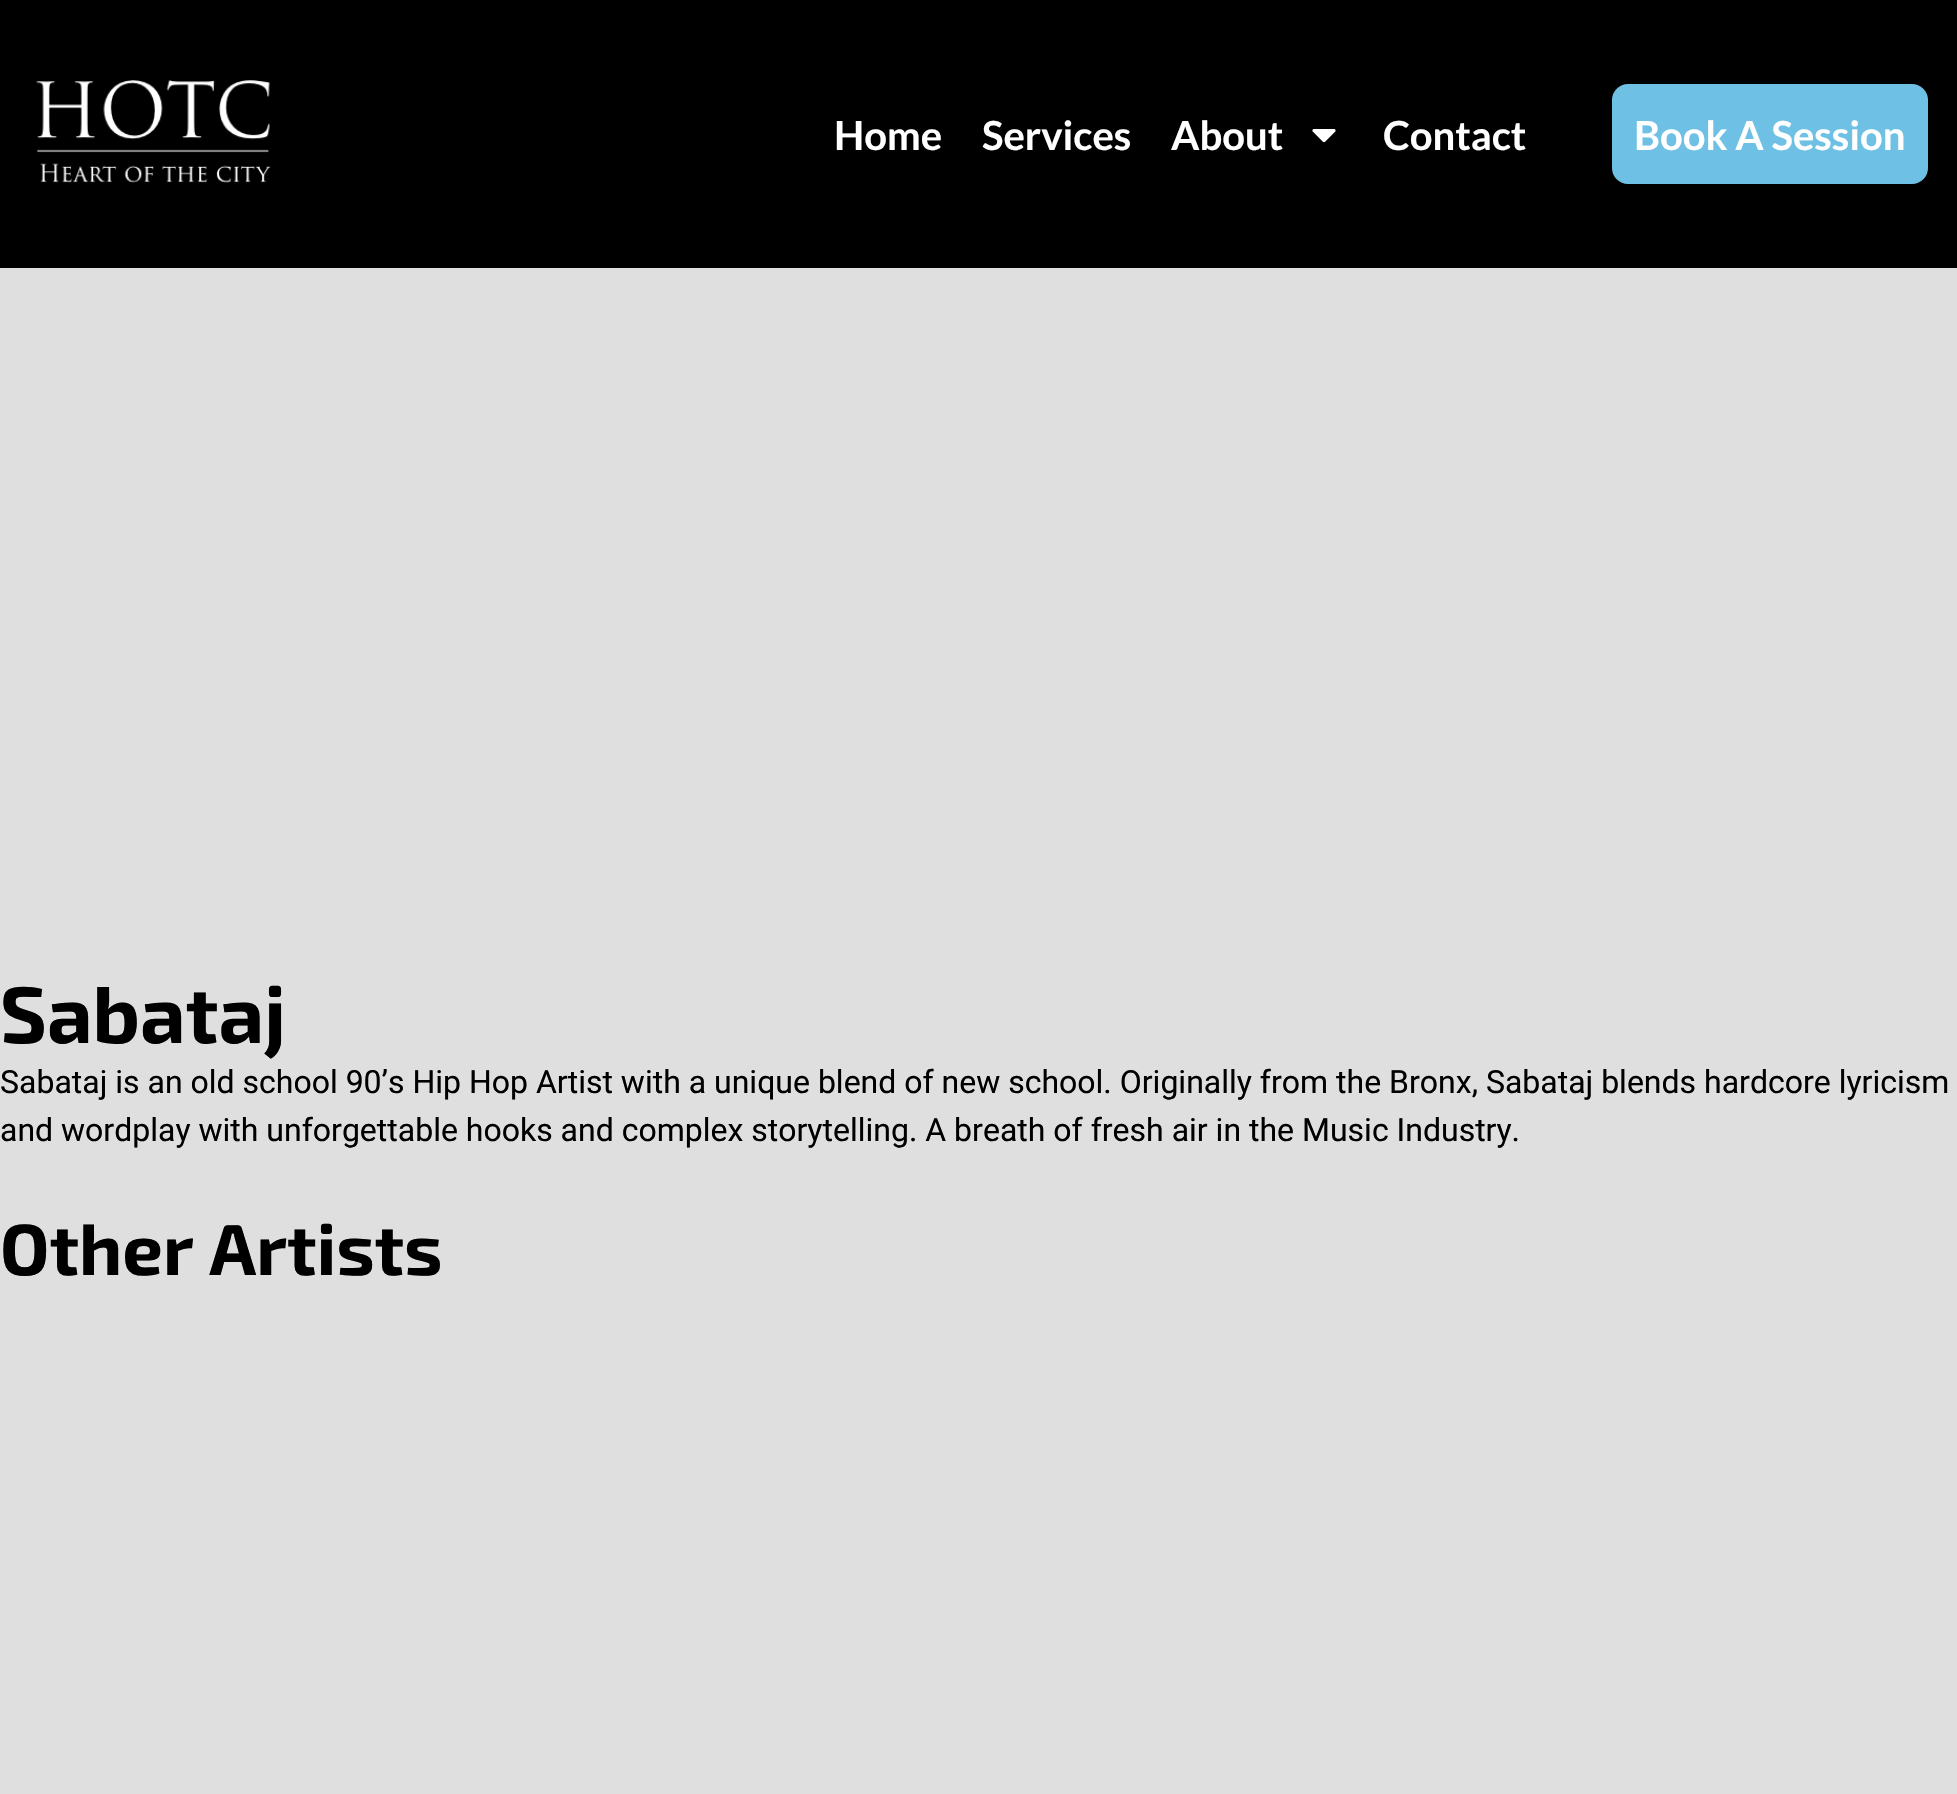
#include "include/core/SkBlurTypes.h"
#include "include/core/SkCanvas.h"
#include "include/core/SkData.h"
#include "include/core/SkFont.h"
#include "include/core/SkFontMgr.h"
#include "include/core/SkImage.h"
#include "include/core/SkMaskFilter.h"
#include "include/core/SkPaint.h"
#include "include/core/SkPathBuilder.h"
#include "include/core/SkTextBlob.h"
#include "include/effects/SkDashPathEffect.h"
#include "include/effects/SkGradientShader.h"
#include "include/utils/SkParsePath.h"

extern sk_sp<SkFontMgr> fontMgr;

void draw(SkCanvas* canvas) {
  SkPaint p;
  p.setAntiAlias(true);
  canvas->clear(SkColorSetRGB(223, 223, 223));
  p.setColor(SK_ColorBLACK);
  canvas->drawRect(SkRect::MakeLTRB(0, 0, 1957, 268), p);
  canvas->drawImageRect(SkImages::DeferredFromEncodedData(SkData::MakeFromFileName("images/1.png")), SkRect::MakeLTRB(36, 80, 271, 183), SkSamplingOptions());
  canvas->drawImageRect(SkImages::DeferredFromEncodedData(SkData::MakeFromFileName("images/2.png")), SkRect::MakeLTRB(1312, 129, 1336, 143), SkSamplingOptions());
  p.setColor(SkColorSetRGB(110, 193, 228));
  canvas->drawRoundRect(SkRect::MakeLTRB(1615, 87, 1925, 181), 13, 13, p);
  p.setStyle(SkPaint::kStroke_Style);
  p.setStrokeWidth(6);
  canvas->drawRoundRect(SkRect::MakeLTRB(1615, 87, 1925, 181), 13, 13, p);
  SkFont font1(fontMgr->matchFamilyStyle("Lato", SkFontStyle::Bold()), 40);
  font1.setSubpixel(true);
  p.setStyle(SkPaint::kFill_Style);
  p.setColor(SK_ColorWHITE);
  canvas->drawString("Home", 834, 150, font1, p);
  canvas->drawString("Services", 982, 150, font1, p);
  canvas->drawString("About", 1171, 150, font1, p);
  canvas->drawString("Contact", 1383, 150, font1, p);
  canvas->drawString("Book A Session", 1634, 150, font1, p);
  SkFont font2(fontMgr->matchFamilyStyle("Exo 2", SkFontStyle::Bold()), 80);
  font2.setSubpixel(true);
  p.setColor(SK_ColorBLACK);
  canvas->drawString("Sabataj", 0, 1043, font2, p);
  SkFont font3(fontMgr->matchFamilyStyle("Roboto", SkFontStyle::Normal()), 32);
  font3.setSubpixel(true);
  canvas->drawString("Sabataj is an old school 90’s Hip Hop Artist with a unique blend of new school. Originally from the Bronx, Sabataj blends hardcore lyricism", 0, 1093, font3, p);
  canvas->drawString("and wordplay with unforgettable hooks and complex storytelling. A breath of fresh air in the Music Industry.", 0, 1141, font3, p);
  SkFont font4(fontMgr->matchFamilyStyle("Exo 2", SkFontStyle::Bold()), 72);
  font4.setSubpixel(true);
  canvas->drawString("Other Artists", 0, 1275, font4, p);
}
